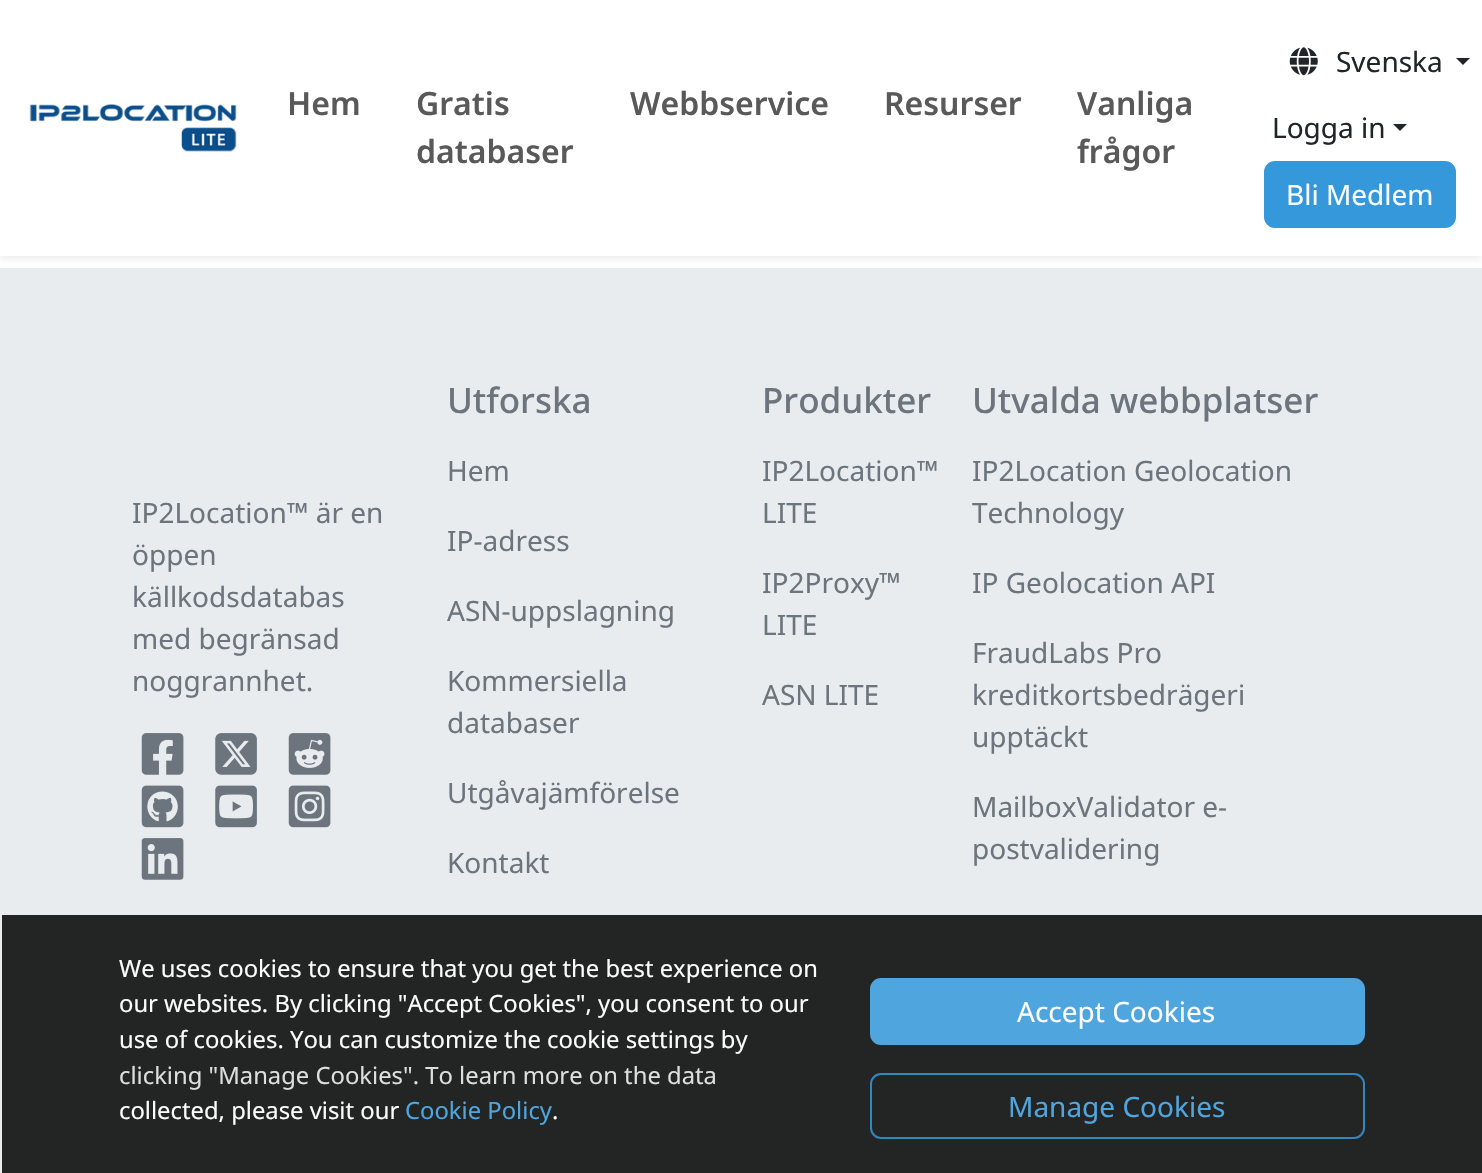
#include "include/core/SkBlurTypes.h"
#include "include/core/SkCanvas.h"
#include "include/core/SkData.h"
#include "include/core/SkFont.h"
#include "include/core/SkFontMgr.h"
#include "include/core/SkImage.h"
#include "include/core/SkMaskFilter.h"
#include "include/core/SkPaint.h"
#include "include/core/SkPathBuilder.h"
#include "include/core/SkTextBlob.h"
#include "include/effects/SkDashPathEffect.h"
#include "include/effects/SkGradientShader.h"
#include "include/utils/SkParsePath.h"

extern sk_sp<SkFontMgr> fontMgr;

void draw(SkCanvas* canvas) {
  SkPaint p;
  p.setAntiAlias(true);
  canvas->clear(SK_ColorWHITE);
  p.setColor(SkColorSetRGB(233, 236, 239));
  canvas->drawRect(SkRect::MakeLTRB(0, 268, 1482, 1173), p);
  p.setColor(SkColorSetARGB(18, 0, 0, 0));
  p.setMaskFilter(SkMaskFilter::MakeBlur(kNormal_SkBlurStyle, 3.5f));
  canvas->drawRect(SkRect::MakeLTRB(0, 4, 1482, 259), p);
  p.setMaskFilter(nullptr);
  p.setColor(SK_ColorWHITE);
  canvas->drawRect(SkRect::MakeLTRB(0, 0, 1482, 256), p);
  canvas->drawImageRect(SkImages::DeferredFromEncodedData(SkData::MakeFromFileName("images/1.png")), SkRect::MakeLTRB(29, 104, 237, 152), SkSamplingOptions());
  canvas->drawImageRect(SkImages::DeferredFromEncodedData(SkData::MakeFromFileName("images/2.png")), SkRect::MakeLTRB(1289, 47, 1318, 76), SkSamplingOptions());
  p.setColor(SkColorSetRGB(33, 37, 41));
  canvas->drawPath(SkPathBuilder().moveTo(1456, 58).lineTo(1470, 58).lineTo(1463, 65).close().detach(), p);
  canvas->drawPath(SkPathBuilder().moveTo(1393, 124).lineTo(1407, 124).lineTo(1400, 131).close().detach(), p);
  p.setColor(SkColorSetRGB(52, 152, 219));
  canvas->drawRoundRect(SkRect::MakeLTRB(1265, 162, 1455, 227), 10, 10, p);
  p.setStyle(SkPaint::kStroke_Style);
  p.setStrokeWidth(2);
  canvas->drawRoundRect(SkRect::MakeLTRB(1265, 162, 1455, 227), 10, 10, p);
  canvas->drawImageRect(SkImages::DeferredFromEncodedData(SkData::MakeFromFileName("images/3.png")), SkRect::MakeLTRB(141, 733, 184, 775), SkSamplingOptions());
  canvas->drawImageRect(SkImages::DeferredFromEncodedData(SkData::MakeFromFileName("images/4.png")), SkRect::MakeLTRB(215, 733, 257, 775), SkSamplingOptions());
  canvas->drawImageRect(SkImages::DeferredFromEncodedData(SkData::MakeFromFileName("images/5.png")), SkRect::MakeLTRB(288, 733, 331, 775), SkSamplingOptions());
  canvas->drawImageRect(SkImages::DeferredFromEncodedData(SkData::MakeFromFileName("images/6.png")), SkRect::MakeLTRB(141, 785, 184, 828), SkSamplingOptions());
  canvas->drawImageRect(SkImages::DeferredFromEncodedData(SkData::MakeFromFileName("images/7.png")), SkRect::MakeLTRB(215, 785, 257, 828), SkSamplingOptions());
  canvas->drawImageRect(SkImages::DeferredFromEncodedData(SkData::MakeFromFileName("images/8.png")), SkRect::MakeLTRB(288, 785, 331, 828), SkSamplingOptions());
  canvas->drawImageRect(SkImages::DeferredFromEncodedData(SkData::MakeFromFileName("images/9.png")), SkRect::MakeLTRB(141, 838, 184, 880), SkSamplingOptions());
  p.setStyle(SkPaint::kFill_Style);
  p.setColor(SkColorSetARGB(217, 0, 0, 0));
  canvas->drawRect(SkRect::MakeLTRB(2, 915, 1482, 1173), p);
  p.setColor(SkColorSetRGB(79, 165, 222));
  canvas->drawRoundRect(SkRect::MakeLTRB(871, 979, 1364, 1044), 10, 10, p);
  p.setStyle(SkPaint::kStroke_Style);
  canvas->drawRoundRect(SkRect::MakeLTRB(871, 979, 1364, 1044), 10, 10, p);
  p.setColor(SkColorSetARGB(217, 52, 152, 219));
  canvas->drawRoundRect(SkRect::MakeLTRB(871, 1074, 1364, 1138), 10, 10, p);
  SkFont font1(fontMgr->matchFamilyStyle("Noto Sans", SkFontStyle(600, SkFontStyle::kNormal_Width, SkFontStyle::kUpright_Slant)), 32);
  font1.setSubpixel(true);
  p.setStyle(SkPaint::kFill_Style);
  p.setColor(SkColorSetRGB(89, 89, 89));
  canvas->drawString("Hem", 287, 115, font1, p);
  canvas->drawString("Gratis", 416, 115, font1, p);
  canvas->drawString("databaser", 416, 163, font1, p);
  canvas->drawString("Webbservice", 630, 115, font1, p);
  canvas->drawString("Resurser", 884, 115, font1, p);
  canvas->drawString("Vanliga", 1077, 115, font1, p);
  canvas->drawString("frågor", 1077, 163, font1, p);
  SkFont font2(fontMgr->matchFamilyStyle("Noto Sans", SkFontStyle::Normal()), 28);
  font2.setSubpixel(true);
  p.setColor(SkColorSetRGB(33, 37, 41));
  canvas->drawString("Svenska", 1336, 72, font2, p);
  canvas->drawString("Logga in", 1272, 138, font2, p);
  p.setColor(SkColorSetRGB(252, 252, 253));
  canvas->drawString("Bli Medlem", 1286, 205, font2, p);
  p.setColor(SkColorSetRGB(108, 117, 125));
  canvas->drawString("IP2Location™ är en", 132, 523, font2, p);
  canvas->drawString("öppen", 132, 565, font2, p);
  canvas->drawString("källkodsdatabas", 132, 607, font2, p);
  canvas->drawString("med begränsad", 132, 649, font2, p);
  canvas->drawString("noggrannhet.", 132, 691, font2, p);
  SkFont font3(fontMgr->matchFamilyStyle("Noto Sans", SkFontStyle(500, SkFontStyle::kNormal_Width, SkFontStyle::kUpright_Slant)), 35);
  font3.setSubpixel(true);
  canvas->drawString("Utforska", 447, 413, font3, p);
  canvas->drawString("Hem", 447, 481, font2, p);
  canvas->drawString("IP-adress", 447, 551, font2, p);
  canvas->drawString("ASN-uppslagning", 447, 621, font2, p);
  canvas->drawString("Kommersiella", 447, 691, font2, p);
  canvas->drawString("databaser", 447, 733, font2, p);
  canvas->drawString("Utgåvajämförelse", 447, 803, font2, p);
  canvas->drawString("Kontakt", 447, 873, font2, p);
  canvas->drawString("Produkter", 762, 413, font3, p);
  canvas->drawString("IP2Location™", 762, 481, font2, p);
  canvas->drawString("LITE", 762, 523, font2, p);
  canvas->drawString("IP2Proxy™", 762, 593, font2, p);
  canvas->drawString("LITE", 762, 635, font2, p);
  canvas->drawString("ASN LITE", 762, 705, font2, p);
  canvas->drawString("Utvalda webbplatser", 972, 413, font3, p);
  canvas->drawString("IP2Location Geolocation", 972, 481, font2, p);
  canvas->drawString("Technology", 972, 523, font2, p);
  canvas->drawString("IP Geolocation API", 972, 593, font2, p);
  canvas->drawString("FraudLabs Pro", 972, 663, font2, p);
  canvas->drawString("kreditkortsbedrägeri", 972, 705, font2, p);
  canvas->drawString("upptäckt", 972, 747, font2, p);
  canvas->drawString("MailboxValidator e-", 972, 817, font2, p);
  canvas->drawString("postvalidering", 972, 859, font2, p);
  SkFont font4(fontMgr->matchFamilyStyle("Noto Sans", SkFontStyle::Normal()), 23.8f);
  font4.setSubpixel(true);
  p.setColor(SkColorSetRGB(252, 252, 253));
  canvas->drawString("We uses cookies to ensure that you get the best experience on", 119, 977, font4, p);
  canvas->drawString("our websites. By clicking \"Accept Cookies\", you consent to our", 119, 1012, font4, p);
  canvas->drawString("use of cookies. You can customize the cookie settings by", 119, 1048, font4, p);
  p.setColor(SkColorSetRGB(221, 222, 222));
  canvas->drawString("clicking \"Manage Cookies\". To learn more on the data", 119, 1084, font4, p);
  p.setColor(SkColorSetRGB(252, 252, 253));
  canvas->drawString("collected, please visit our", 119, 1119, font4, p);
  p.setColor(SkColorSetRGB(79, 165, 222));
  canvas->drawString("Cookie Policy", 405, 1119, font4, p);
  p.setColor(SkColorSetRGB(252, 252, 253));
  canvas->drawString(".", 552, 1119, font4, p);
  canvas->drawString("Accept Cookies", 1017, 1022, font2, p);
  p.setColor(SkColorSetRGB(79, 165, 222));
  canvas->drawString("Manage Cookies", 1008, 1117, font2, p);
}
